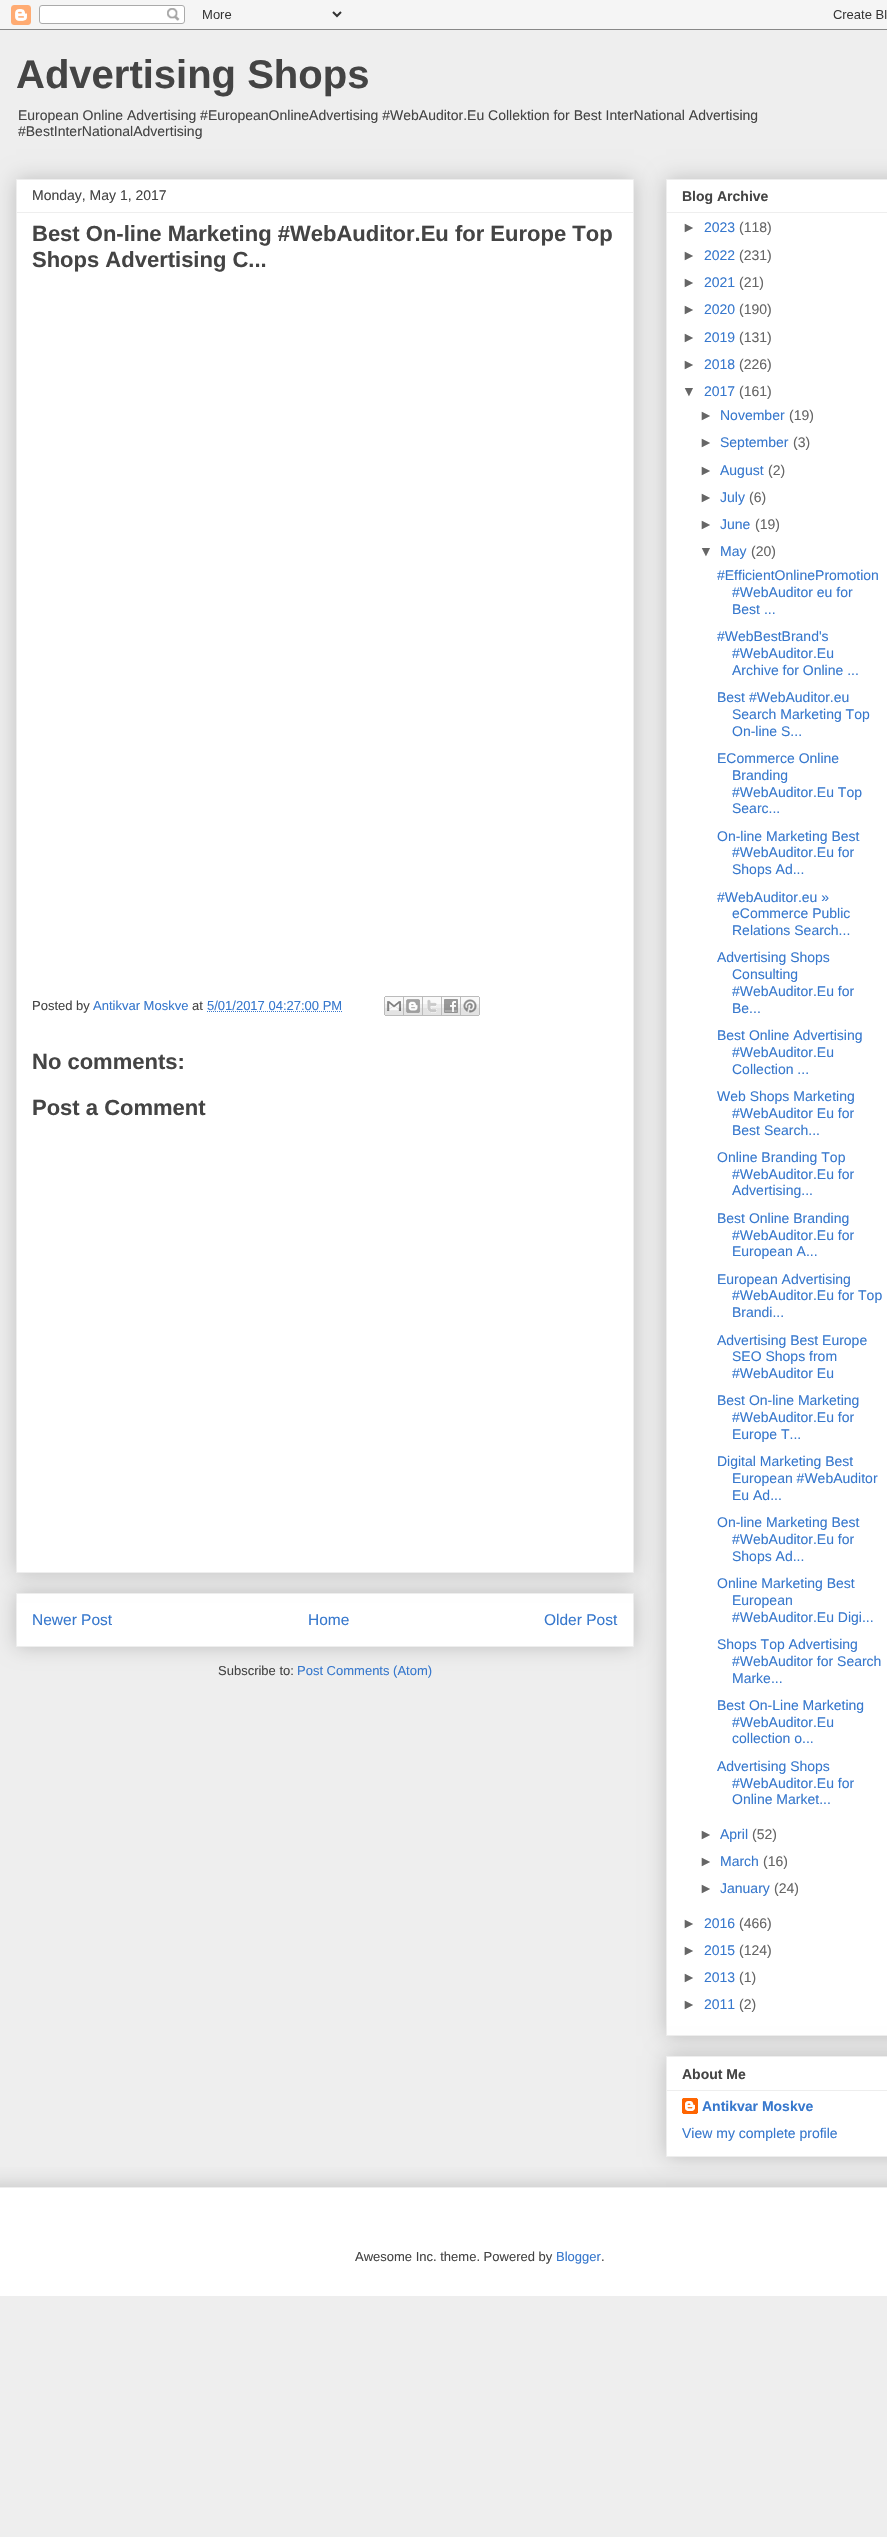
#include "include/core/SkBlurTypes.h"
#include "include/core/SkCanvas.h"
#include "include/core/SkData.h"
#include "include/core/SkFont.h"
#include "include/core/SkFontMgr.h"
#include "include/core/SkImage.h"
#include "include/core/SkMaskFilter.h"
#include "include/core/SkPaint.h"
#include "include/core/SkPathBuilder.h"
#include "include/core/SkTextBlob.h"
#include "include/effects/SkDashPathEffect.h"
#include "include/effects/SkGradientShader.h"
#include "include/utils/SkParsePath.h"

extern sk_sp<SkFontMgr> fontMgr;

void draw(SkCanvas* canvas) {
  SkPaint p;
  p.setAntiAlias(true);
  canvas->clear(SkColorSetRGB(238, 238, 238));
  canvas->drawImageRect(SkImages::DeferredFromEncodedData(SkData::MakeFromFileName("images/1.png")), SkRect::MakeLTRB(0, 0, 887, 30), SkSamplingOptions());
  p.setColor(SkColorSetARGB(51, 0, 0, 0));
  p.setMaskFilter(SkMaskFilter::MakeBlur(kNormal_SkBlurStyle, 10));
  canvas->drawRect(SkRect::MakeLTRB(16, 1593, 634, 1647), p);
  p.setMaskFilter(nullptr);
  p.setColor(SK_ColorWHITE);
  canvas->drawRect(SkRect::MakeLTRB(16.5f, 1593.5f, 633.5f, 1646.5f), p);
  p.setStyle(SkPaint::kStroke_Style);
  p.setStrokeWidth(1);
  p.setColor(SkColorSetRGB(238, 238, 238));
  canvas->drawRect(SkRect::MakeLTRB(16.5f, 1593.5f, 633.5f, 1646.5f), p);
  p.setStyle(SkPaint::kFill_Style);
  p.setColor(SkColorSetARGB(51, 0, 0, 0));
  p.setMaskFilter(SkMaskFilter::MakeBlur(kNormal_SkBlurStyle, 10));
  canvas->drawRect(SkRect::MakeLTRB(16, 179, 634, 1573), p);
  p.setMaskFilter(nullptr);
  p.setColor(SK_ColorWHITE);
  canvas->drawRect(SkRect::MakeLTRB(16.5f, 179.5f, 633.5f, 1572.5f), p);
  p.setStyle(SkPaint::kStroke_Style);
  p.setColor(SkColorSetRGB(238, 238, 238));
  canvas->drawRect(SkRect::MakeLTRB(16.5f, 179.5f, 633.5f, 1572.5f), p);
  p.setStyle(SkPaint::kFill_Style);
  canvas->drawRect(SkRect::MakeLTRB(17, 212, 633, 213), p);
  p.setStyle(SkPaint::kStroke_Style);
  p.setColor(SkColorSetRGB(55, 120, 205));
  p.setPathEffect(SkDashPathEffect::Make({{1, 1}}, 0));
  canvas->drawPath(SkPathBuilder().moveTo(207, 1011.5f).lineTo(342, 1011.5f).detach(), p);
  p.setPathEffect(nullptr);
  canvas->drawImageRect(SkImages::DeferredFromEncodedData(SkData::MakeFromFileName("images/2.png")), SkRect::MakeLTRB(384, 996, 404, 1016), SkSamplingOptions());
  canvas->drawImageRect(SkImages::DeferredFromEncodedData(SkData::MakeFromFileName("images/3.png")), SkRect::MakeLTRB(404, 996, 423, 1016), SkSamplingOptions());
  canvas->drawImageRect(SkImages::DeferredFromEncodedData(SkData::MakeFromFileName("images/4.png")), SkRect::MakeLTRB(423, 996, 442, 1016), SkSamplingOptions());
  canvas->drawImageRect(SkImages::DeferredFromEncodedData(SkData::MakeFromFileName("images/5.png")), SkRect::MakeLTRB(442, 996, 461, 1016), SkSamplingOptions());
  canvas->drawImageRect(SkImages::DeferredFromEncodedData(SkData::MakeFromFileName("images/6.png")), SkRect::MakeLTRB(461, 996, 480, 1016), SkSamplingOptions());
  p.setStyle(SkPaint::kFill_Style);
  p.setColor(SkColorSetARGB(51, 0, 0, 0));
  p.setMaskFilter(SkMaskFilter::MakeBlur(kNormal_SkBlurStyle, 10));
  canvas->drawRect(SkRect::MakeLTRB(666, 179, 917, 2036), p);
  p.setMaskFilter(nullptr);
  p.setColor(SK_ColorWHITE);
  canvas->drawRect(SkRect::MakeLTRB(666.5f, 179.5f, 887.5f, 2035.5f), p);
  p.setStyle(SkPaint::kStroke_Style);
  p.setColor(SkColorSetRGB(238, 238, 238));
  canvas->drawRect(SkRect::MakeLTRB(666.5f, 179.5f, 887.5f, 2035.5f), p);
  p.setStyle(SkPaint::kFill_Style);
  canvas->drawRect(SkRect::MakeLTRB(667, 212, 887, 213), p);
  p.setColor(SkColorSetARGB(51, 0, 0, 0));
  p.setMaskFilter(SkMaskFilter::MakeBlur(kNormal_SkBlurStyle, 10));
  canvas->drawRect(SkRect::MakeLTRB(666, 2056, 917, 2157), p);
  p.setMaskFilter(nullptr);
  p.setColor(SK_ColorWHITE);
  canvas->drawRect(SkRect::MakeLTRB(666.5f, 2056.5f, 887.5f, 2156.5f), p);
  p.setStyle(SkPaint::kStroke_Style);
  p.setColor(SkColorSetRGB(238, 238, 238));
  canvas->drawRect(SkRect::MakeLTRB(666.5f, 2056.5f, 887.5f, 2156.5f), p);
  p.setStyle(SkPaint::kFill_Style);
  canvas->drawRect(SkRect::MakeLTRB(667, 2090, 887, 2091), p);
  canvas->drawImageRect(SkImages::DeferredFromEncodedData(SkData::MakeFromFileName("images/7.png")), SkRect::MakeLTRB(682, 2098, 698, 2114), SkSamplingOptions());
  canvas->save();
  canvas->clipRect(SkRect::MakeLTRB(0, 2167, 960, 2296));
  p.setColor(SkColorSetARGB(51, 0, 0, 0));
  p.setMaskFilter(SkMaskFilter::MakeBlur(kNormal_SkBlurStyle, 10));
  canvas->drawRect(SkRect::MakeLTRB(-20, 2187, 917, 2296), p);
  p.setMaskFilter(nullptr);
  canvas->restore();
  p.setColor(SK_ColorWHITE);
  canvas->drawRect(SkRect::MakeLTRB(0, 2188, 887, 2296), p);
  p.setColor(SkColorSetRGB(238, 238, 238));
  canvas->drawRect(SkRect::MakeLTRB(0, 2187, 887, 2188), p);
  SkFont font1(fontMgr->matchFamilyStyle("Liberation Sans", SkFontStyle::Bold()), 40);
  font1.setSubpixel(true);
  p.setColor(SkColorSetRGB(68, 68, 68));
  canvas->drawString("Advertising Shops", 16, 88, font1, p);
  SkFont font2(fontMgr->matchFamilyStyle("Liberation Sans", SkFontStyle::Normal()), 14);
  font2.setSubpixel(true);
  canvas->drawString("European Online Advertising #EuropeanOnlineAdvertising #WebAuditor.Eu Collektion for Best InterNational Advertising", 18, 120, font2, p);
  canvas->drawString("#BestInterNationalAdvertising", 18, 136, font2, p);
  canvas->drawString("Monday, May 1, 2017", 32, 200, font2, p);
  SkFont font3(fontMgr->matchFamilyStyle("Liberation Sans", SkFontStyle::Bold()), 22);
  font3.setSubpixel(true);
  canvas->drawString("Best On-line Marketing #WebAuditor.Eu for Europe Top", 32, 241, font3, p);
  canvas->drawString("Shops Advertising C...", 32, 267, font3, p);
  SkFont font4(fontMgr->matchFamilyStyle("Liberation Sans", SkFontStyle::Normal()), 13);
  font4.setSubpixel(true);
  canvas->drawString("Posted by", 32, 1010, font4, p);
  p.setColor(SkColorSetRGB(55, 120, 205));
  canvas->drawString("Antikvar Moskve", 93, 1010, font4, p);
  p.setColor(SkColorSetRGB(68, 68, 68));
  canvas->drawString("at", 192, 1010, font4, p);
  p.setColor(SkColorSetRGB(55, 120, 205));
  canvas->drawString("5/01/2017 04:27:00 PM", 207, 1010, font4, p);
  p.setColor(SkColorSetRGB(68, 68, 68));
  canvas->drawString("No comments:", 32, 1069, font3, p);
  canvas->drawString("Post a Comment", 32, 1115, font3, p);
  SkFont font5(fontMgr->matchFamilyStyle("Liberation Sans", SkFontStyle::Normal()), 15.5f);
  font5.setSubpixel(true);
  p.setColor(SkColorSetRGB(55, 120, 205));
  canvas->drawString("Newer Post", 32, 1625, font5, p);
  canvas->drawString("Home", 308, 1625, font5, p);
  canvas->drawString("Older Post", 544, 1625, font5, p);
  p.setColor(SkColorSetRGB(68, 68, 68));
  canvas->drawString("Subscribe to:", 218, 1675, font4, p);
  p.setColor(SkColorSetRGB(55, 120, 205));
  canvas->drawString("Post Comments (Atom)", 297, 1675, font4, p);
  SkFont font6(fontMgr->matchFamilyStyle("Liberation Sans", SkFontStyle::Bold()), 14);
  font6.setSubpixel(true);
  p.setColor(SkColorSetRGB(68, 68, 68));
  canvas->drawString("Blog Archive", 682, 201, font6, p);
  p.setColor(SkColorSetRGB(102, 102, 102));
  canvas->drawString("►", 682, 232, font2, p);
  p.setColor(SkColorSetRGB(55, 120, 205));
  canvas->drawString("2023", 704, 232, font2, p);
  p.setColor(SkColorSetRGB(102, 102, 102));
  canvas->drawString("(118)", 739, 232, font2, p);
  canvas->drawString("►", 682, 260, font2, p);
  p.setColor(SkColorSetRGB(55, 120, 205));
  canvas->drawString("2022", 704, 260, font2, p);
  p.setColor(SkColorSetRGB(102, 102, 102));
  canvas->drawString("(231)", 739, 260, font2, p);
  canvas->drawString("►", 682, 287, font2, p);
  p.setColor(SkColorSetRGB(55, 120, 205));
  canvas->drawString("2021", 704, 287, font2, p);
  p.setColor(SkColorSetRGB(102, 102, 102));
  canvas->drawString("(21)", 739, 287, font2, p);
  canvas->drawString("►", 682, 314, font2, p);
  p.setColor(SkColorSetRGB(55, 120, 205));
  canvas->drawString("2020", 704, 314, font2, p);
  p.setColor(SkColorSetRGB(102, 102, 102));
  canvas->drawString("(190)", 739, 314, font2, p);
  canvas->drawString("►", 682, 342, font2, p);
  p.setColor(SkColorSetRGB(55, 120, 205));
  canvas->drawString("2019", 704, 342, font2, p);
  p.setColor(SkColorSetRGB(102, 102, 102));
  canvas->drawString("(131)", 739, 342, font2, p);
  canvas->drawString("►", 682, 369, font2, p);
  p.setColor(SkColorSetRGB(55, 120, 205));
  canvas->drawString("2018", 704, 369, font2, p);
  p.setColor(SkColorSetRGB(102, 102, 102));
  canvas->drawString("(226)", 739, 369, font2, p);
  canvas->drawString("▼", 682, 396, font2, p);
  p.setColor(SkColorSetRGB(55, 120, 205));
  canvas->drawString("2017", 704, 396, font2, p);
  p.setColor(SkColorSetRGB(102, 102, 102));
  canvas->drawString("(161)", 739, 396, font2, p);
  canvas->drawString("►", 699, 420, font2, p);
  p.setColor(SkColorSetRGB(55, 120, 205));
  canvas->drawString("November", 720, 420, font2, p);
  p.setColor(SkColorSetRGB(102, 102, 102));
  canvas->drawString("(19)", 789, 420, font2, p);
  canvas->drawString("►", 699, 447, font2, p);
  p.setColor(SkColorSetRGB(55, 120, 205));
  canvas->drawString("September", 720, 447, font2, p);
  p.setColor(SkColorSetRGB(102, 102, 102));
  canvas->drawString("(3)", 793, 447, font2, p);
  canvas->drawString("►", 699, 475, font2, p);
  p.setColor(SkColorSetRGB(55, 120, 205));
  canvas->drawString("August", 720, 475, font2, p);
  p.setColor(SkColorSetRGB(102, 102, 102));
  canvas->drawString("(2)", 768, 475, font2, p);
  canvas->drawString("►", 699, 502, font2, p);
  p.setColor(SkColorSetRGB(55, 120, 205));
  canvas->drawString("July", 720, 502, font2, p);
  p.setColor(SkColorSetRGB(102, 102, 102));
  canvas->drawString("(6)", 749, 502, font2, p);
  canvas->drawString("►", 699, 529, font2, p);
  p.setColor(SkColorSetRGB(55, 120, 205));
  canvas->drawString("June", 720, 529, font2, p);
  p.setColor(SkColorSetRGB(102, 102, 102));
  canvas->drawString("(19)", 755, 529, font2, p);
  canvas->drawString("▼", 699, 556, font2, p);
  p.setColor(SkColorSetRGB(55, 120, 205));
  canvas->drawString("May", 720, 556, font2, p);
  p.setColor(SkColorSetRGB(102, 102, 102));
  canvas->drawString("(20)", 751, 556, font2, p);
  p.setColor(SkColorSetRGB(55, 120, 205));
  canvas->drawString("#EfficientOnlinePromotion", 717, 580, font2, p);
  canvas->drawString("#WebAuditor eu for", 732, 597, font2, p);
  canvas->drawString("Best ...", 732, 614, font2, p);
  canvas->drawString("#WebBestBrand's", 717, 641, font2, p);
  canvas->drawString("#WebAuditor.Eu", 732, 658, font2, p);
  canvas->drawString("Archive for Online ...", 732, 675, font2, p);
  canvas->drawString("Best #WebAuditor.eu", 717, 702, font2, p);
  canvas->drawString("Search Marketing Top", 732, 719, font2, p);
  canvas->drawString("On-line S...", 732, 736, font2, p);
  canvas->drawString("ECommerce Online", 717, 763, font2, p);
  canvas->drawString("Branding", 732, 780, font2, p);
  canvas->drawString("#WebAuditor.Eu Top", 732, 797, font2, p);
  canvas->drawString("Searc...", 732, 813, font2, p);
  canvas->drawString("On-line Marketing Best", 717, 841, font2, p);
  canvas->drawString("#WebAuditor.Eu for", 732, 857, font2, p);
  canvas->drawString("Shops Ad...", 732, 874, font2, p);
  canvas->drawString("#WebAuditor.eu »", 717, 902, font2, p);
  canvas->drawString("eCommerce Public", 732, 918, font2, p);
  canvas->drawString("Relations Search...", 732, 935, font2, p);
  canvas->drawString("Advertising Shops", 717, 962, font2, p);
  canvas->drawString("Consulting", 732, 979, font2, p);
  canvas->drawString("#WebAuditor.Eu for", 732, 996, font2, p);
  canvas->drawString("Be...", 732, 1013, font2, p);
  canvas->drawString("Best Online Advertising", 717, 1040, font2, p);
  canvas->drawString("#WebAuditor.Eu", 732, 1057, font2, p);
  canvas->drawString("Collection ...", 732, 1074, font2, p);
  canvas->drawString("Web Shops Marketing", 717, 1101, font2, p);
  canvas->drawString("#WebAuditor Eu for", 732, 1118, font2, p);
  canvas->drawString("Best Search...", 732, 1135, font2, p);
  canvas->drawString("Online Branding Top", 717, 1162, font2, p);
  canvas->drawString("#WebAuditor.Eu for", 732, 1179, font2, p);
  canvas->drawString("Advertising...", 732, 1195, font2, p);
  canvas->drawString("Best Online Branding", 717, 1223, font2, p);
  canvas->drawString("#WebAuditor.Eu for", 732, 1240, font2, p);
  canvas->drawString("European A...", 732, 1256, font2, p);
  canvas->drawString("European Advertising", 717, 1284, font2, p);
  canvas->drawString("#WebAuditor.Eu for Top", 732, 1300, font2, p);
  canvas->drawString("Brandi...", 732, 1317, font2, p);
  canvas->drawString("Advertising Best Europe", 717, 1345, font2, p);
  canvas->drawString("SEO Shops from", 732, 1361, font2, p);
  canvas->drawString("#WebAuditor Eu", 732, 1378, font2, p);
  canvas->drawString("Best On-line Marketing", 717, 1405, font2, p);
  canvas->drawString("#WebAuditor.Eu for", 732, 1422, font2, p);
  canvas->drawString("Europe T...", 732, 1439, font2, p);
  canvas->drawString("Digital Marketing Best", 717, 1466, font2, p);
  canvas->drawString("European #WebAuditor", 732, 1483, font2, p);
  canvas->drawString("Eu Ad...", 732, 1500, font2, p);
  canvas->drawString("On-line Marketing Best", 717, 1527, font2, p);
  canvas->drawString("#WebAuditor.Eu for", 732, 1544, font2, p);
  canvas->drawString("Shops Ad...", 732, 1561, font2, p);
  canvas->drawString("Online Marketing Best", 717, 1588, font2, p);
  canvas->drawString("European", 732, 1605, font2, p);
  canvas->drawString("#WebAuditor.Eu Digi...", 732, 1622, font2, p);
  canvas->drawString("Shops Top Advertising", 717, 1649, font2, p);
  canvas->drawString("#WebAuditor for Search", 732, 1666, font2, p);
  canvas->drawString("Marke...", 732, 1683, font2, p);
  canvas->drawString("Best On-Line Marketing", 717, 1710, font2, p);
  canvas->drawString("#WebAuditor.Eu", 732, 1727, font2, p);
  canvas->drawString("collection o...", 732, 1743, font2, p);
  canvas->drawString("Advertising Shops", 717, 1771, font2, p);
  canvas->drawString("#WebAuditor.Eu for", 732, 1788, font2, p);
  canvas->drawString("Online Market...", 732, 1804, font2, p);
  p.setColor(SkColorSetRGB(102, 102, 102));
  canvas->drawString("►", 699, 1839, font2, p);
  p.setColor(SkColorSetRGB(55, 120, 205));
  canvas->drawString("April", 720, 1839, font2, p);
  p.setColor(SkColorSetRGB(102, 102, 102));
  canvas->drawString("(52)", 752, 1839, font2, p);
  canvas->drawString("►", 699, 1866, font2, p);
  p.setColor(SkColorSetRGB(55, 120, 205));
  canvas->drawString("March", 720, 1866, font2, p);
  p.setColor(SkColorSetRGB(102, 102, 102));
  canvas->drawString("(16)", 763, 1866, font2, p);
  canvas->drawString("►", 699, 1893, font2, p);
  p.setColor(SkColorSetRGB(55, 120, 205));
  canvas->drawString("January", 720, 1893, font2, p);
  p.setColor(SkColorSetRGB(102, 102, 102));
  canvas->drawString("(24)", 774, 1893, font2, p);
  canvas->drawString("►", 682, 1928, font2, p);
  p.setColor(SkColorSetRGB(55, 120, 205));
  canvas->drawString("2016", 704, 1928, font2, p);
  p.setColor(SkColorSetRGB(102, 102, 102));
  canvas->drawString("(466)", 739, 1928, font2, p);
  canvas->drawString("►", 682, 1955, font2, p);
  p.setColor(SkColorSetRGB(55, 120, 205));
  canvas->drawString("2015", 704, 1955, font2, p);
  p.setColor(SkColorSetRGB(102, 102, 102));
  canvas->drawString("(124)", 739, 1955, font2, p);
  canvas->drawString("►", 682, 1982, font2, p);
  p.setColor(SkColorSetRGB(55, 120, 205));
  canvas->drawString("2013", 704, 1982, font2, p);
  p.setColor(SkColorSetRGB(102, 102, 102));
  canvas->drawString("(1)", 739, 1982, font2, p);
  canvas->drawString("►", 682, 2009, font2, p);
  p.setColor(SkColorSetRGB(55, 120, 205));
  canvas->drawString("2011", 704, 2009, font2, p);
  p.setColor(SkColorSetRGB(102, 102, 102));
  canvas->drawString("(2)", 739, 2009, font2, p);
  p.setColor(SkColorSetRGB(68, 68, 68));
  canvas->drawString("About Me", 682, 2079, font6, p);
  p.setColor(SkColorSetRGB(55, 120, 205));
  canvas->drawString("Antikvar Moskve", 702, 2111, font6, p);
  canvas->drawString("View my complete profile", 682, 2138, font2, p);
  p.setColor(SkColorSetRGB(68, 68, 68));
  canvas->drawString("Awesome Inc. theme. Powered by", 355, 2261, font4, p);
  p.setColor(SkColorSetRGB(55, 120, 205));
  canvas->drawString("Blogger", 556, 2261, font4, p);
  p.setColor(SkColorSetRGB(68, 68, 68));
  canvas->drawString(".", 601, 2261, font4, p);
}
